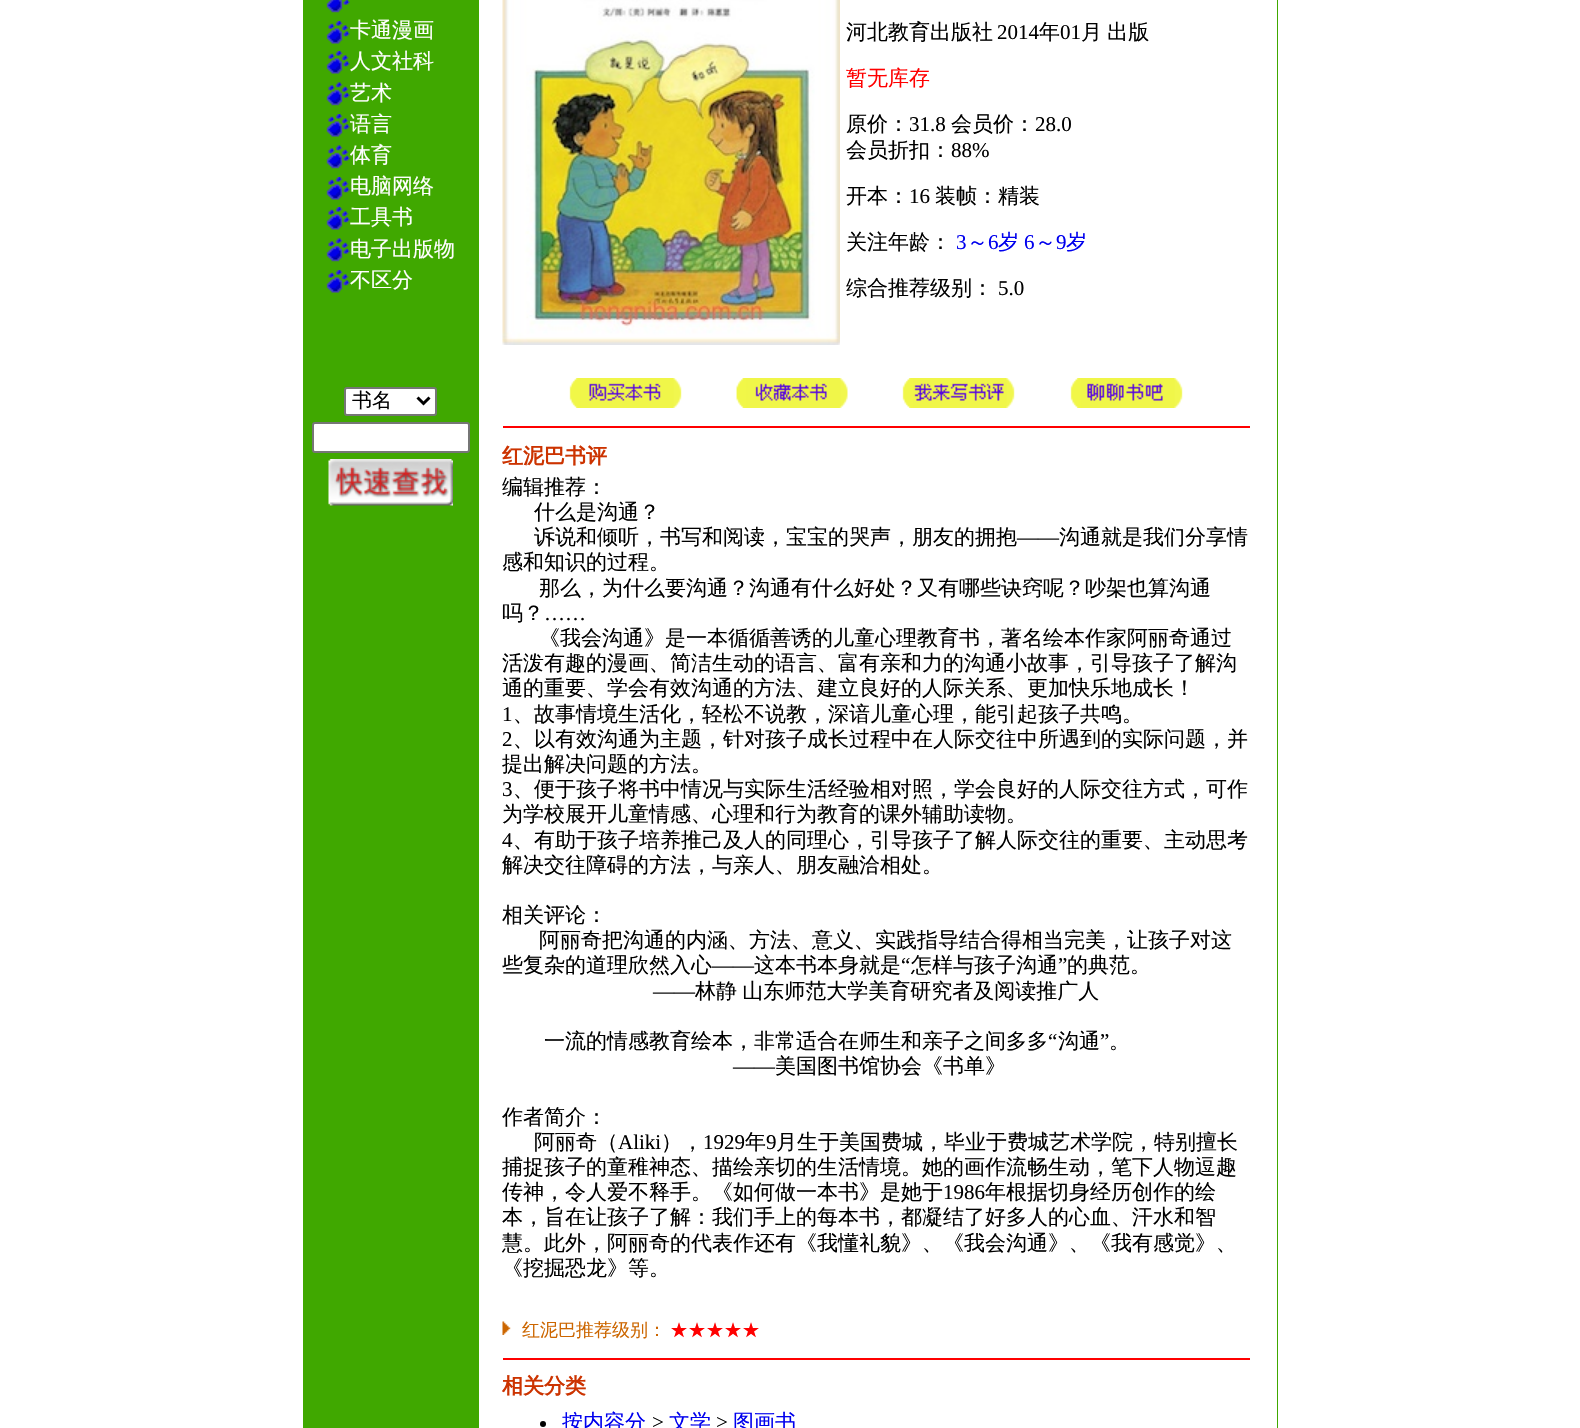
#include "include/core/SkBlurTypes.h"
#include "include/core/SkCanvas.h"
#include "include/core/SkData.h"
#include "include/core/SkFont.h"
#include "include/core/SkFontMgr.h"
#include "include/core/SkImage.h"
#include "include/core/SkMaskFilter.h"
#include "include/core/SkPaint.h"
#include "include/core/SkPathBuilder.h"
#include "include/core/SkTextBlob.h"
#include "include/effects/SkDashPathEffect.h"
#include "include/effects/SkGradientShader.h"
#include "include/utils/SkParsePath.h"

extern sk_sp<SkFontMgr> fontMgr;

void draw(SkCanvas* canvas) {
  SkPaint p;
  p.setAntiAlias(true);
  auto spacedText = [&](const char* s, float x, float y, const SkFont& font, const SkPaint& ink, float letter, float word) {
    std::vector<SkGlyphID> glyphs(font.countText(s, strlen(s), SkTextEncoding::kUTF8));
    std::vector<float> xs(glyphs.size());
    font.textToGlyphs(s, strlen(s), SkTextEncoding::kUTF8, glyphs);
    font.getXPos(glyphs, xs, x);
    float extra = 0;
    for (size_t i = 0; i < glyphs.size(); i++) {
      xs[i] += extra;
      extra += letter + word * (glyphs[i] == font.unicharToGlyph(' '));
    }
    canvas->drawTextBlob(SkTextBlob::MakeFromPosHGlyphs(glyphs, xs, y, font), 0, 0, ink);
  };
  canvas->clear(SK_ColorWHITE);
  p.setColor(SkColorSetRGB(64, 168, 0));
  canvas->drawRect(SkRect::MakeLTRB(303, 0, 1278, 1428), p);
  canvas->drawImageRect(SkImages::DeferredFromEncodedData(SkData::MakeFromFileName("images/1.png")), SkRect::MakeLTRB(326, 0, 350, 13), SkSamplingOptions());
  canvas->drawImageRect(SkImages::DeferredFromEncodedData(SkData::MakeFromFileName("images/2.png")), SkRect::MakeLTRB(326, 21, 350, 44), SkSamplingOptions());
  canvas->drawImageRect(SkImages::DeferredFromEncodedData(SkData::MakeFromFileName("images/2.png")), SkRect::MakeLTRB(326, 51, 350, 74), SkSamplingOptions());
  canvas->drawImageRect(SkImages::DeferredFromEncodedData(SkData::MakeFromFileName("images/3.png")), SkRect::MakeLTRB(326, 82, 350, 106), SkSamplingOptions());
  canvas->drawImageRect(SkImages::DeferredFromEncodedData(SkData::MakeFromFileName("images/2.png")), SkRect::MakeLTRB(326, 114, 350, 137), SkSamplingOptions());
  canvas->drawImageRect(SkImages::DeferredFromEncodedData(SkData::MakeFromFileName("images/3.png")), SkRect::MakeLTRB(326, 145, 350, 169), SkSamplingOptions());
  canvas->drawImageRect(SkImages::DeferredFromEncodedData(SkData::MakeFromFileName("images/2.png")), SkRect::MakeLTRB(326, 177, 350, 200), SkSamplingOptions());
  canvas->drawImageRect(SkImages::DeferredFromEncodedData(SkData::MakeFromFileName("images/2.png")), SkRect::MakeLTRB(326, 207, 350, 230), SkSamplingOptions());
  canvas->drawImageRect(SkImages::DeferredFromEncodedData(SkData::MakeFromFileName("images/3.png")), SkRect::MakeLTRB(326, 238, 350, 262), SkSamplingOptions());
  canvas->drawImageRect(SkImages::DeferredFromEncodedData(SkData::MakeFromFileName("images/2.png")), SkRect::MakeLTRB(326, 270, 350, 293), SkSamplingOptions());
  p.setColor(SK_ColorWHITE);
  canvas->drawRoundRect(SkRect::MakeLTRB(345, 388, 436, 415), 2, 2, p);
  p.setStyle(SkPaint::kStroke_Style);
  p.setStrokeWidth(2);
  p.setColor(SkColorSetRGB(118, 118, 118));
  canvas->drawRoundRect(SkRect::MakeLTRB(345, 388, 436, 415), 2, 2, p);
  p.setStrokeWidth(3);
  p.setColor(SK_ColorBLACK);
  canvas->drawPath(SkPathBuilder().moveTo(417.5f, 397.5f).lineTo(423.5f, 403.5f).lineTo(429.5f, 397.5f).detach(), p);
  p.setStyle(SkPaint::kFill_Style);
  p.setColor(SK_ColorWHITE);
  canvas->drawRoundRect(SkRect::MakeLTRB(313, 423, 469, 452), 2, 2, p);
  p.setStyle(SkPaint::kStroke_Style);
  p.setStrokeWidth(2);
  p.setColor(SkColorSetRGB(118, 118, 118));
  canvas->drawRoundRect(SkRect::MakeLTRB(313, 423, 469, 452), 2, 2, p);
  canvas->drawImageRect(SkImages::DeferredFromEncodedData(SkData::MakeFromFileName("images/4.png")), SkRect::MakeLTRB(328, 459, 453, 506), SkSamplingOptions());
  p.setStyle(SkPaint::kFill_Style);
  p.setColor(SK_ColorWHITE);
  canvas->drawRect(SkRect::MakeLTRB(479, 0, 1277, 1428), p);
  canvas->drawImageRect(SkImages::DeferredFromEncodedData(SkData::MakeFromFileName("images/5.png")), SkRect::MakeLTRB(502, 0, 840, 345), SkSamplingOptions());
  canvas->drawImageRect(SkImages::DeferredFromEncodedData(SkData::MakeFromFileName("images/6.png")), SkRect::MakeLTRB(569, 378, 682, 408), SkSamplingOptions());
  canvas->drawImageRect(SkImages::DeferredFromEncodedData(SkData::MakeFromFileName("images/7.png")), SkRect::MakeLTRB(736, 378, 848, 408), SkSamplingOptions());
  canvas->drawImageRect(SkImages::DeferredFromEncodedData(SkData::MakeFromFileName("images/8.png")), SkRect::MakeLTRB(902, 378, 1015, 408), SkSamplingOptions());
  canvas->drawImageRect(SkImages::DeferredFromEncodedData(SkData::MakeFromFileName("images/9.png")), SkRect::MakeLTRB(1070, 378, 1183, 408), SkSamplingOptions());
  p.setColor(SkColorSetRGB(255, 0, 0));
  canvas->drawRect(SkRect::MakeLTRB(503, 426, 1250, 428), p);
  canvas->drawImageRect(SkImages::DeferredFromEncodedData(SkData::MakeFromFileName("images/10.png")), SkRect::MakeLTRB(502, 1321, 511, 1335), SkSamplingOptions());
  canvas->drawRect(SkRect::MakeLTRB(503, 1358, 1250, 1360), p);
  p.setColor(SK_ColorBLACK);
  canvas->drawCircle(543, 1424, 3, p);
  SkFont font1(fontMgr->matchFamilyStyle("WenQuanYi Zen Hei", SkFontStyle(500, SkFontStyle::kNormal_Width, SkFontStyle::kUpright_Slant)), 21);
  font1.setSubpixel(true);
  p.setColor(SK_ColorWHITE);
  canvas->drawString("卡通漫画", 350, 37, font1, p);
  canvas->drawString("人文社科", 350, 68, font1, p);
  canvas->drawString("艺术", 350, 100, font1, p);
  canvas->drawString("语言", 350, 131, font1, p);
  canvas->drawString("体育", 350, 162, font1, p);
  canvas->drawString("电脑网络", 350, 193, font1, p);
  canvas->drawString("工具书", 350, 224, font1, p);
  canvas->drawString("电子出版物", 350, 256, font1, p);
  canvas->drawString("不区分", 350, 287, font1, p);
  SkFont font2(fontMgr->matchFamilyStyle("WenQuanYi Zen Hei", SkFontStyle(500, SkFontStyle::kNormal_Width, SkFontStyle::kUpright_Slant)), 20);
  font2.setSubpixel(true);
  p.setColor(SK_ColorBLACK);
  canvas->drawString("书名", 352, 407, font2, p);
  canvas->drawString("河北教育出版社", 846, 39, font1, p);
  SkFont font3(fontMgr->matchFamilyStyle("Liberation Serif", SkFontStyle::Normal()), 21);
  font3.setSubpixel(true);
  canvas->drawString("2014", 997, 39, font3, p);
  canvas->drawString("年", 1039, 39, font1, p);
  canvas->drawString("01", 1060, 39, font3, p);
  spacedText("月 出版", 1081, 39, font1, p, 0, -1);
  p.setColor(SkColorSetRGB(255, 0, 0));
  canvas->drawString("暂无库存", 846, 85, font1, p);
  p.setColor(SK_ColorBLACK);
  canvas->drawString("原价：", 846, 131, font1, p);
  canvas->drawString("31.8", 909, 131, font3, p);
  canvas->drawString("会员价：", 951, 131, font1, p);
  canvas->drawString("28.0", 1035, 131, font3, p);
  canvas->drawString("会员折扣：", 846, 157, font1, p);
  canvas->drawString("88%", 951, 157, font3, p);
  canvas->drawString("开本：", 846, 203, font1, p);
  canvas->drawString("16", 909, 203, font3, p);
  canvas->drawString("装帧：精装", 935, 203, font1, p);
  canvas->drawString("关注年龄：", 846, 249, font1, p);
  p.setColor(SkColorSetRGB(0, 0, 238));
  canvas->drawString("3", 956, 249, font3, p);
  canvas->drawString("～", 967, 249, font1, p);
  canvas->drawString("6", 988, 249, font3, p);
  canvas->drawString("岁", 998, 249, font1, p);
  canvas->drawString("6", 1024, 249, font3, p);
  canvas->drawString("～", 1035, 249, font1, p);
  canvas->drawString("9", 1056, 249, font3, p);
  canvas->drawString("岁", 1066, 249, font1, p);
  p.setColor(SK_ColorBLACK);
  canvas->drawString("综合推荐级别：", 846, 295, font1, p);
  canvas->drawString("5.0", 998, 295, font3, p);
  SkFont font4(fontMgr->matchFamilyStyle("WenQuanYi Zen Hei", SkFontStyle::Bold()), 21);
  font4.setSubpixel(true);
  p.setColor(SkColorSetRGB(204, 51, 0));
  canvas->drawString("红泥巴书评", 502, 463, font4, p);
  p.setColor(SK_ColorBLACK);
  canvas->drawString("编辑推荐：", 502, 494, font1, p);
  canvas->drawString("什么是沟通？", 534, 519, font1, p);
  canvas->drawString("诉说和倾听，书写和阅读，宝宝的哭声，朋友的拥抱", 534, 544, font1, p);
  canvas->drawString("——", 1017, 544, font3, p);
  canvas->drawString("沟通就是我们分享情", 1059, 544, font1, p);
  canvas->drawString("感和知识的过程。", 502, 569, font1, p);
  canvas->drawString("那么，为什么要沟通？沟通有什么好处？又有哪些诀窍呢？吵架也算沟通", 539, 595, font1, p);
  canvas->drawString("吗？", 502, 620, font1, p);
  canvas->drawString("……", 544, 620, font3, p);
  canvas->drawString("《我会沟通》是一本循循善诱的儿童心理教育书，著名绘本作家阿丽奇通过", 539, 645, font1, p);
  canvas->drawString("活泼有趣的漫画、简洁生动的语言、富有亲和力的沟通小故事，引导孩子了解沟", 502, 670, font1, p);
  canvas->drawString("通的重要、学会有效沟通的方法、建立良好的人际关系、更加快乐地成长！", 502, 695, font1, p);
  canvas->drawString("1", 502, 721, font3, p);
  canvas->drawString("、故事情境生活化，轻松不说教，深谙儿童心理，能引起孩子共鸣。", 513, 721, font1, p);
  canvas->drawString("2", 502, 746, font3, p);
  canvas->drawString("、以有效沟通为主题，针对孩子成长过程中在人际交往中所遇到的实际问题，并", 513, 746, font1, p);
  canvas->drawString("提出解决问题的方法。", 502, 771, font1, p);
  canvas->drawString("3", 502, 796, font3, p);
  canvas->drawString("、便于孩子将书中情况与实际生活经验相对照，学会良好的人际交往方式，可作", 513, 796, font1, p);
  canvas->drawString("为学校展开儿童情感、心理和行为教育的课外辅助读物。", 502, 821, font1, p);
  canvas->drawString("4", 502, 847, font3, p);
  canvas->drawString("、有助于孩子培养推己及人的同理心，引导孩子了解人际交往的重要、主动思考", 513, 847, font1, p);
  canvas->drawString("解决交往障碍的方法，与亲人、朋友融洽相处。", 502, 872, font1, p);
  canvas->drawString("相关评论：", 502, 922, font1, p);
  canvas->drawString("阿丽奇把沟通的内涵、方法、意义、实践指导结合得相当完美，让孩子对这", 539, 947, font1, p);
  canvas->drawString("些复杂的道理欣然入心", 502, 972, font1, p);
  canvas->drawString("“", 901, 972, font3, p);
  canvas->drawString("怎样与孩子沟通", 911, 972, font1, p);
  canvas->drawString("”", 1058, 972, font3, p);
  canvas->drawString("的典范。", 1067, 972, font1, p);
  canvas->drawString("——", 712, 972, font3, p);
  canvas->drawString("这本书本身就是", 754, 972, font1, p);
  canvas->drawString("——", 653, 998, font3, p);
  spacedText("林静 山东师范大学美育研究者及阅读推广人", 695, 998, font1, p, 0, -1);
  canvas->drawString("一流的情感教育绘本，非常适合在师生和亲子之间多多", 544, 1048, font1, p);
  canvas->drawString("“", 1048, 1048, font3, p);
  canvas->drawString("沟通", 1058, 1048, font1, p);
  canvas->drawString("”", 1100, 1048, font3, p);
  canvas->drawString("。", 1109, 1048, font1, p);
  canvas->drawString("——", 733, 1073, font3, p);
  canvas->drawString("美国图书馆协会《书单》", 775, 1073, font1, p);
  canvas->drawString("作者简介：", 502, 1124, font1, p);
  canvas->drawString("阿丽奇（", 534, 1149, font1, p);
  canvas->drawString("Aliki", 618, 1149, font3, p);
  canvas->drawString("），", 661, 1149, font1, p);
  canvas->drawString("1929", 703, 1149, font3, p);
  canvas->drawString("年", 745, 1149, font1, p);
  canvas->drawString("9", 766, 1149, font3, p);
  canvas->drawString("月生于美国费城，毕业于费城艺术学院，特别擅长", 776, 1149, font1, p);
  canvas->drawString("捕捉孩子的童稚神态、描绘亲切的生活情境。她的画作流畅生动，笔下人物逗趣", 502, 1174, font1, p);
  canvas->drawString("传神，令人爱不释手。《如何做一本书》是她于", 502, 1199, font1, p);
  canvas->drawString("1986", 943, 1199, font3, p);
  canvas->drawString("年根据切身经历创作的绘", 985, 1199, font1, p);
  canvas->drawString("本，旨在让孩子了解：我们手上的每本书，都凝结了好多人的心血、汗水和智", 502, 1224, font1, p);
  canvas->drawString("慧。此外，阿丽奇的代表作还有《我懂礼貌》、《我会沟通》、《我有感觉》、", 502, 1250, font1, p);
  canvas->drawString("《挖掘恐龙》等。", 502, 1275, font1, p);
  SkFont font5(fontMgr->matchFamilyStyle("WenQuanYi Zen Hei", SkFontStyle(500, SkFontStyle::kNormal_Width, SkFontStyle::kUpright_Slant)), 18);
  font5.setSubpixel(true);
  p.setColor(SkColorSetRGB(204, 102, 0));
  canvas->drawString("红泥巴推荐级别：", 522, 1336, font5, p);
  p.setColor(SkColorSetRGB(255, 0, 0));
  canvas->drawString("★★★★★", 670, 1336, font5, p);
  p.setColor(SkColorSetRGB(204, 51, 0));
  canvas->drawString("相关分类", 502, 1393, font4, p);
  p.setColor(SkColorSetRGB(0, 0, 238));
  canvas->drawString("按内容分", 562, 1429, font1, p);
  p.setColor(SK_ColorBLACK);
  canvas->drawString(">", 652, 1429, font3, p);
  p.setColor(SkColorSetRGB(0, 0, 238));
  canvas->drawString("文学", 669, 1429, font1, p);
  p.setColor(SK_ColorBLACK);
  canvas->drawString(">", 716, 1429, font3, p);
  p.setColor(SkColorSetRGB(0, 0, 238));
  canvas->drawString("图画书", 733, 1429, font1, p);
}
